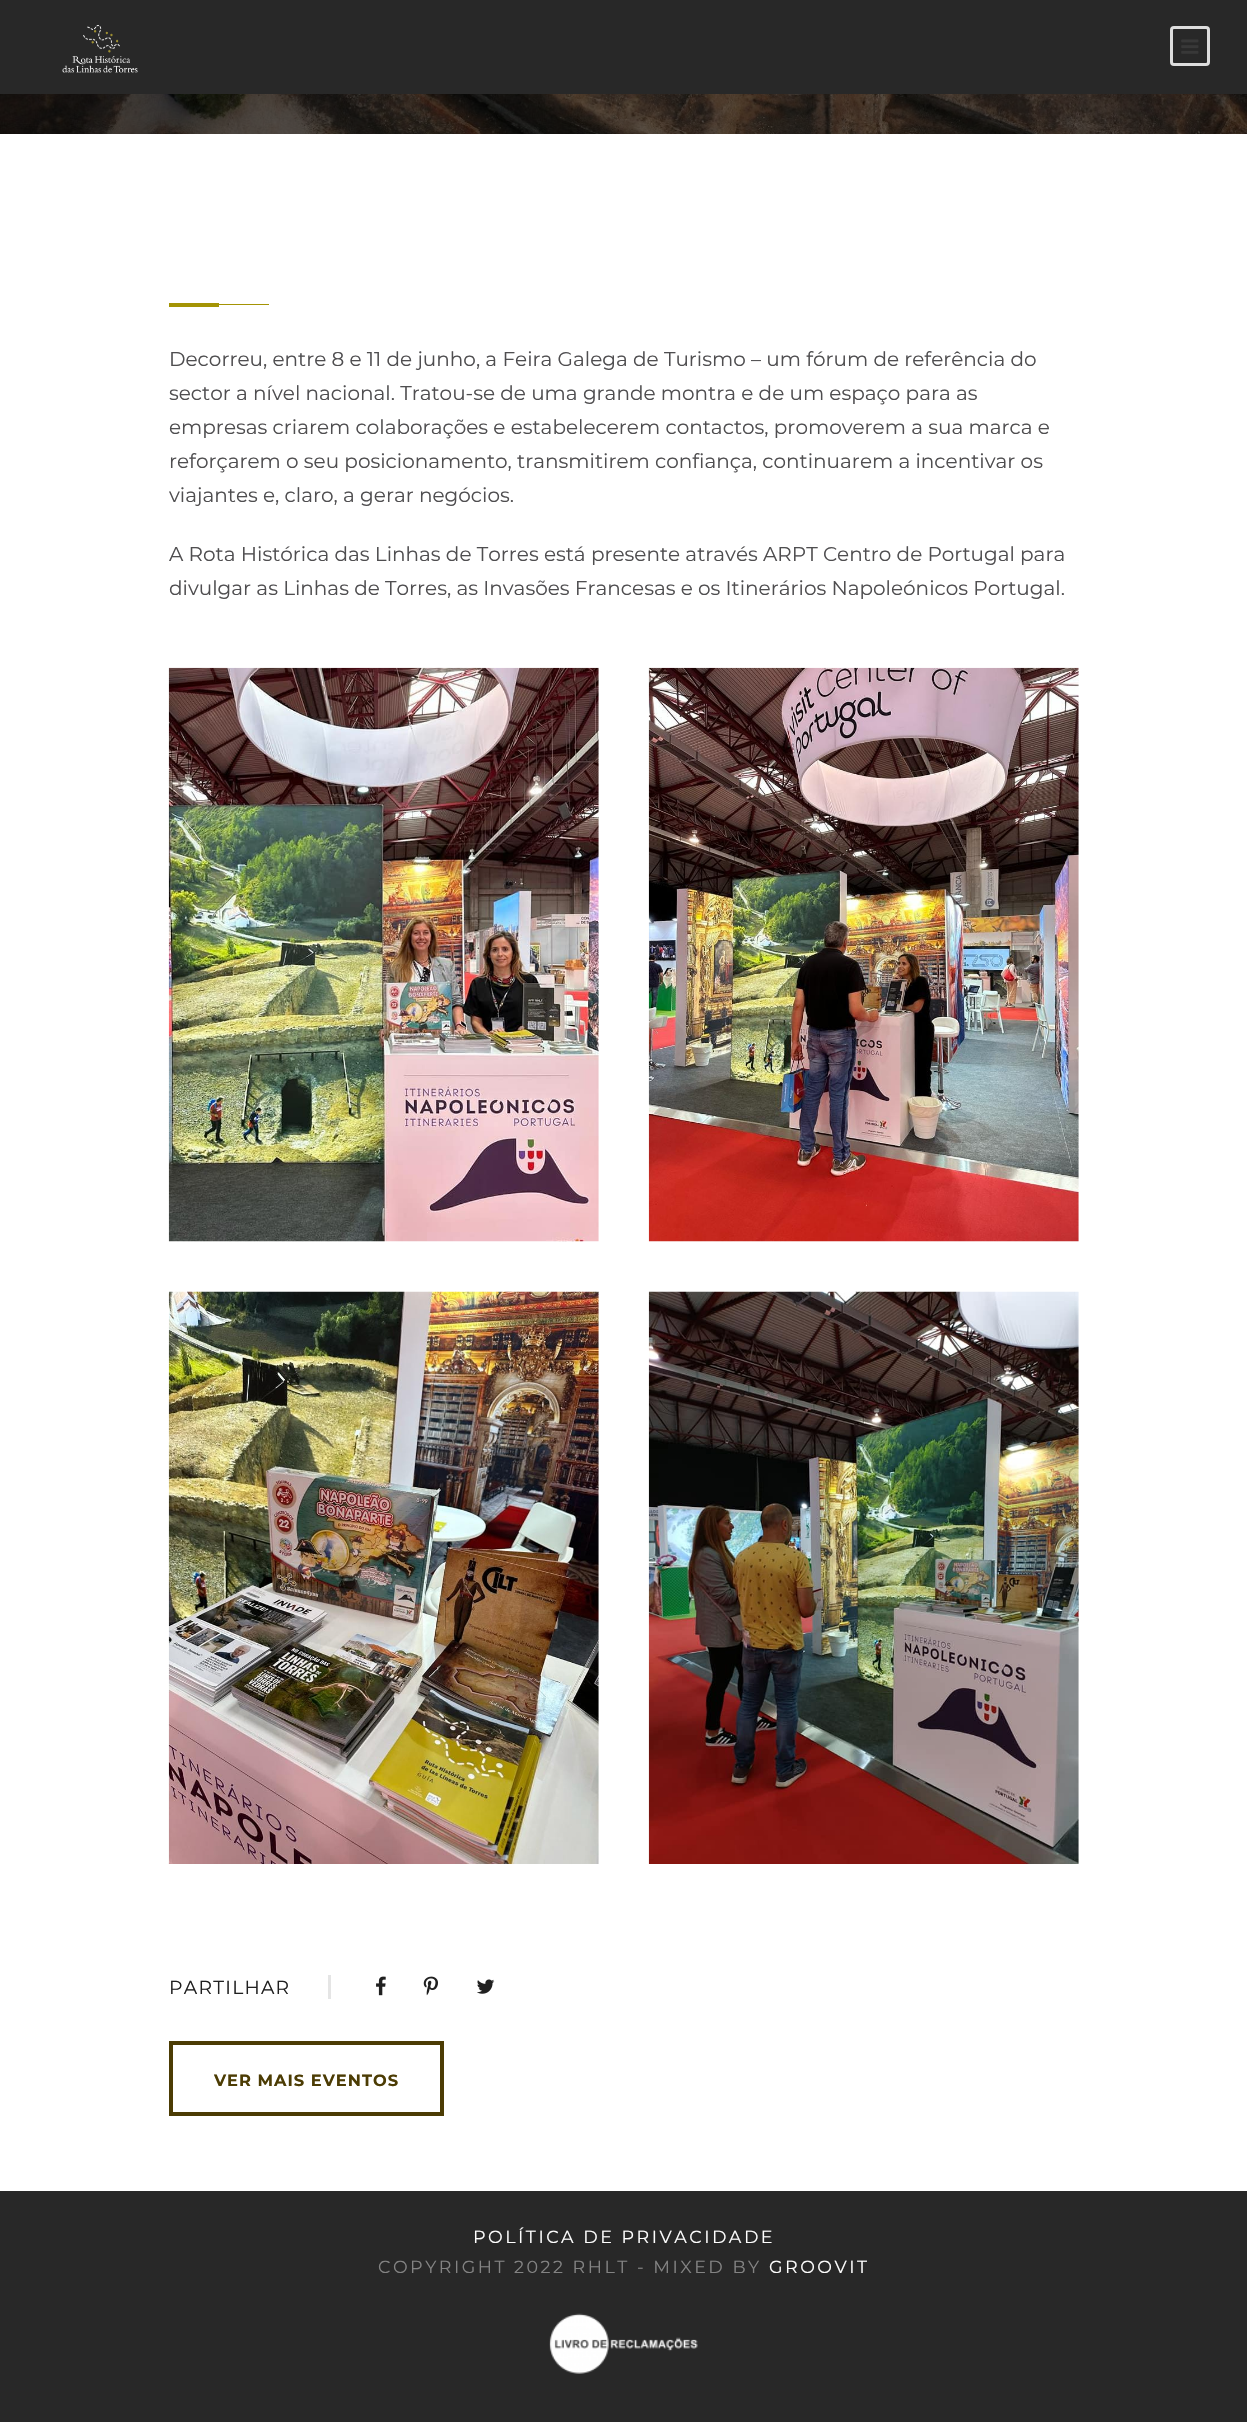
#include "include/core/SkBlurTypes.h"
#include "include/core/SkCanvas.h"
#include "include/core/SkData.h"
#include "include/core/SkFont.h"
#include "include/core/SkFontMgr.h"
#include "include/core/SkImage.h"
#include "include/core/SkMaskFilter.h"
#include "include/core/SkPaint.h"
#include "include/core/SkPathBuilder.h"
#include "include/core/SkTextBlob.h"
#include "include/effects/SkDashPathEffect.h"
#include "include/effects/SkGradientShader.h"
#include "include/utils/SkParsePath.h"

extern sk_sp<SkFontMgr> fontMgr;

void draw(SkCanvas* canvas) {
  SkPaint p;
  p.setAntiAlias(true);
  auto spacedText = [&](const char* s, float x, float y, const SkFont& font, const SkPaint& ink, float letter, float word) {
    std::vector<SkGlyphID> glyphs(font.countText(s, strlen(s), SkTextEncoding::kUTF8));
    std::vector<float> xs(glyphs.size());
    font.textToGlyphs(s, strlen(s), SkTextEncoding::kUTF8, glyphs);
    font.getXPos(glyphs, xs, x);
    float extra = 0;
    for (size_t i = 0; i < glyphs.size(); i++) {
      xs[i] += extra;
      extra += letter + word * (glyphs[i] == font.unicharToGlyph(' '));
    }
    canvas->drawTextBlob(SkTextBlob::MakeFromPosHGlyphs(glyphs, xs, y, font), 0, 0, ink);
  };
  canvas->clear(SkColorSetRGB(40, 40, 40));
  canvas->drawImageRect(SkImages::DeferredFromEncodedData(SkData::MakeFromFileName("images/1.png")), SkRect::MakeLTRB(62, 25, 138, 73), SkSamplingOptions());
  p.setStyle(SkPaint::kStroke_Style);
  p.setStrokeWidth(3);
  p.setColor(SkColorSetRGB(221, 221, 221));
  canvas->drawRoundRect(SkRect::MakeLTRB(1171.5f, 27.5f, 1208.5f, 64.5f), 2.5f, 2.5f, p);
  canvas->drawImageRect(SkImages::DeferredFromEncodedData(SkData::MakeFromFileName("images/2.png")), SkRect::MakeLTRB(1181, 39, 1199, 54), SkSamplingOptions());
  p.setStyle(SkPaint::kFill_Style);
  p.setColor(SK_ColorWHITE);
  canvas->drawRect(SkRect::MakeLTRB(0, 134, 1247, 2191), p);
  canvas->drawImageRect(SkImages::DeferredFromEncodedData(SkData::MakeFromFileName("images/3.png")), SkRect::MakeLTRB(0, 94, 1247, 134), SkSamplingOptions());
  p.setColor(SkColorSetRGB(164, 148, 4));
  canvas->drawRect(SkRect::MakeLTRB(219, 304, 269, 305), p);
  canvas->drawRect(SkRect::MakeLTRB(169, 303, 219, 307), p);
  canvas->drawImageRect(SkImages::DeferredFromEncodedData(SkData::MakeFromFileName("images/4.png")), SkRect::MakeLTRB(168, 667, 599, 1242), SkSamplingOptions());
  canvas->drawImageRect(SkImages::DeferredFromEncodedData(SkData::MakeFromFileName("images/5.png")), SkRect::MakeLTRB(648, 667, 1079, 1242), SkSamplingOptions());
  canvas->drawImageRect(SkImages::DeferredFromEncodedData(SkData::MakeFromFileName("images/6.png")), SkRect::MakeLTRB(168, 1291, 599, 1864), SkSamplingOptions());
  canvas->drawImageRect(SkImages::DeferredFromEncodedData(SkData::MakeFromFileName("images/7.png")), SkRect::MakeLTRB(648, 1291, 1079, 1864), SkSamplingOptions());
  p.setColor(SkColorSetRGB(229, 229, 229));
  canvas->drawRect(SkRect::MakeLTRB(328, 1975, 331, 1999), p);
  canvas->drawImageRect(SkImages::DeferredFromEncodedData(SkData::MakeFromFileName("images/8.png")), SkRect::MakeLTRB(376, 1976, 386, 1996), SkSamplingOptions());
  canvas->drawImageRect(SkImages::DeferredFromEncodedData(SkData::MakeFromFileName("images/9.png")), SkRect::MakeLTRB(423, 1976, 438, 1996), SkSamplingOptions());
  canvas->drawImageRect(SkImages::DeferredFromEncodedData(SkData::MakeFromFileName("images/10.png")), SkRect::MakeLTRB(477, 1979, 495, 1994), SkSamplingOptions());
  p.setStyle(SkPaint::kStroke_Style);
  p.setStrokeWidth(4);
  p.setColor(SkColorSetRGB(76, 60, 4));
  canvas->drawRect(SkRect::MakeLTRB(171, 2043, 442, 2114), p);
  canvas->drawImageRect(SkImages::DeferredFromEncodedData(SkData::MakeFromFileName("images/11.png")), SkRect::MakeLTRB(549, 2313, 698, 2374), SkSamplingOptions());
  SkFont font1(fontMgr->matchFamilyStyle("Montserrat", SkFontStyle::Normal()), 20);
  font1.setSubpixel(true);
  p.setStyle(SkPaint::kFill_Style);
  p.setColor(SkColorSetRGB(79, 78, 80));
  canvas->drawString("Decorreu, entre 8 e 11 de junho, a Feira Galega de Turismo – um fórum de referência do", 169, 366, font1, p);
  canvas->drawString("sector a nível nacional. Tratou-se de uma grande montra e de um espaço para as", 169, 400, font1, p);
  canvas->drawString("empresas criarem colaborações e estabelecerem contactos, promoverem a sua marca e", 169, 434, font1, p);
  canvas->drawString("reforçarem o seu posicionamento, transmitirem confiança, continuarem a incentivar os", 169, 468, font1, p);
  canvas->drawString("viajantes e, claro, a gerar negócios.", 169, 502, font1, p);
  canvas->drawString("A Rota Histórica das Linhas de Torres está presente através ARPT Centro de Portugal para", 169, 561, font1, p);
  canvas->drawString("divulgar as Linhas de Torres, as Invasões Francesas e os Itinerários Napoleónicos Portugal.", 169, 595, font1, p);
  SkFont font2(fontMgr->matchFamilyStyle("Montserrat", SkFontStyle::Normal()), 18.75f);
  font2.setSubpixel(true);
  p.setColor(SkColorSetRGB(32, 32, 32));
  spacedText("PARTILHAR", 169, 1994, font2, p, 1.25f, 0);
  SkFont font3(fontMgr->matchFamilyStyle("Montserrat", SkFontStyle::Bold()), 16.25f);
  font3.setSubpixel(true);
  p.setColor(SkColorSetRGB(76, 60, 4));
  spacedText("VER MAIS EVENTOS", 214, 2086, font3, p, 1, 0);
  SkFont font4(fontMgr->matchFamilyStyle("Montserrat", SkFontStyle::Normal()), 17.5f);
  font4.setSubpixel(true);
  p.setColor(SK_ColorWHITE);
  spacedText("POLÍTICA DE PRIVACIDADE", 473, 2243, font4, p, 2.5f, 0);
  p.setColor(SkColorSetRGB(131, 131, 131));
  spacedText("COPYRIGHT 2022 RHLT - MIXED BY", 378, 2273, font4, p, 2.5f, 0);
  p.setColor(SK_ColorWHITE);
  spacedText("GROOVIT", 769, 2273, font4, p, 2.5f, 0);
}
